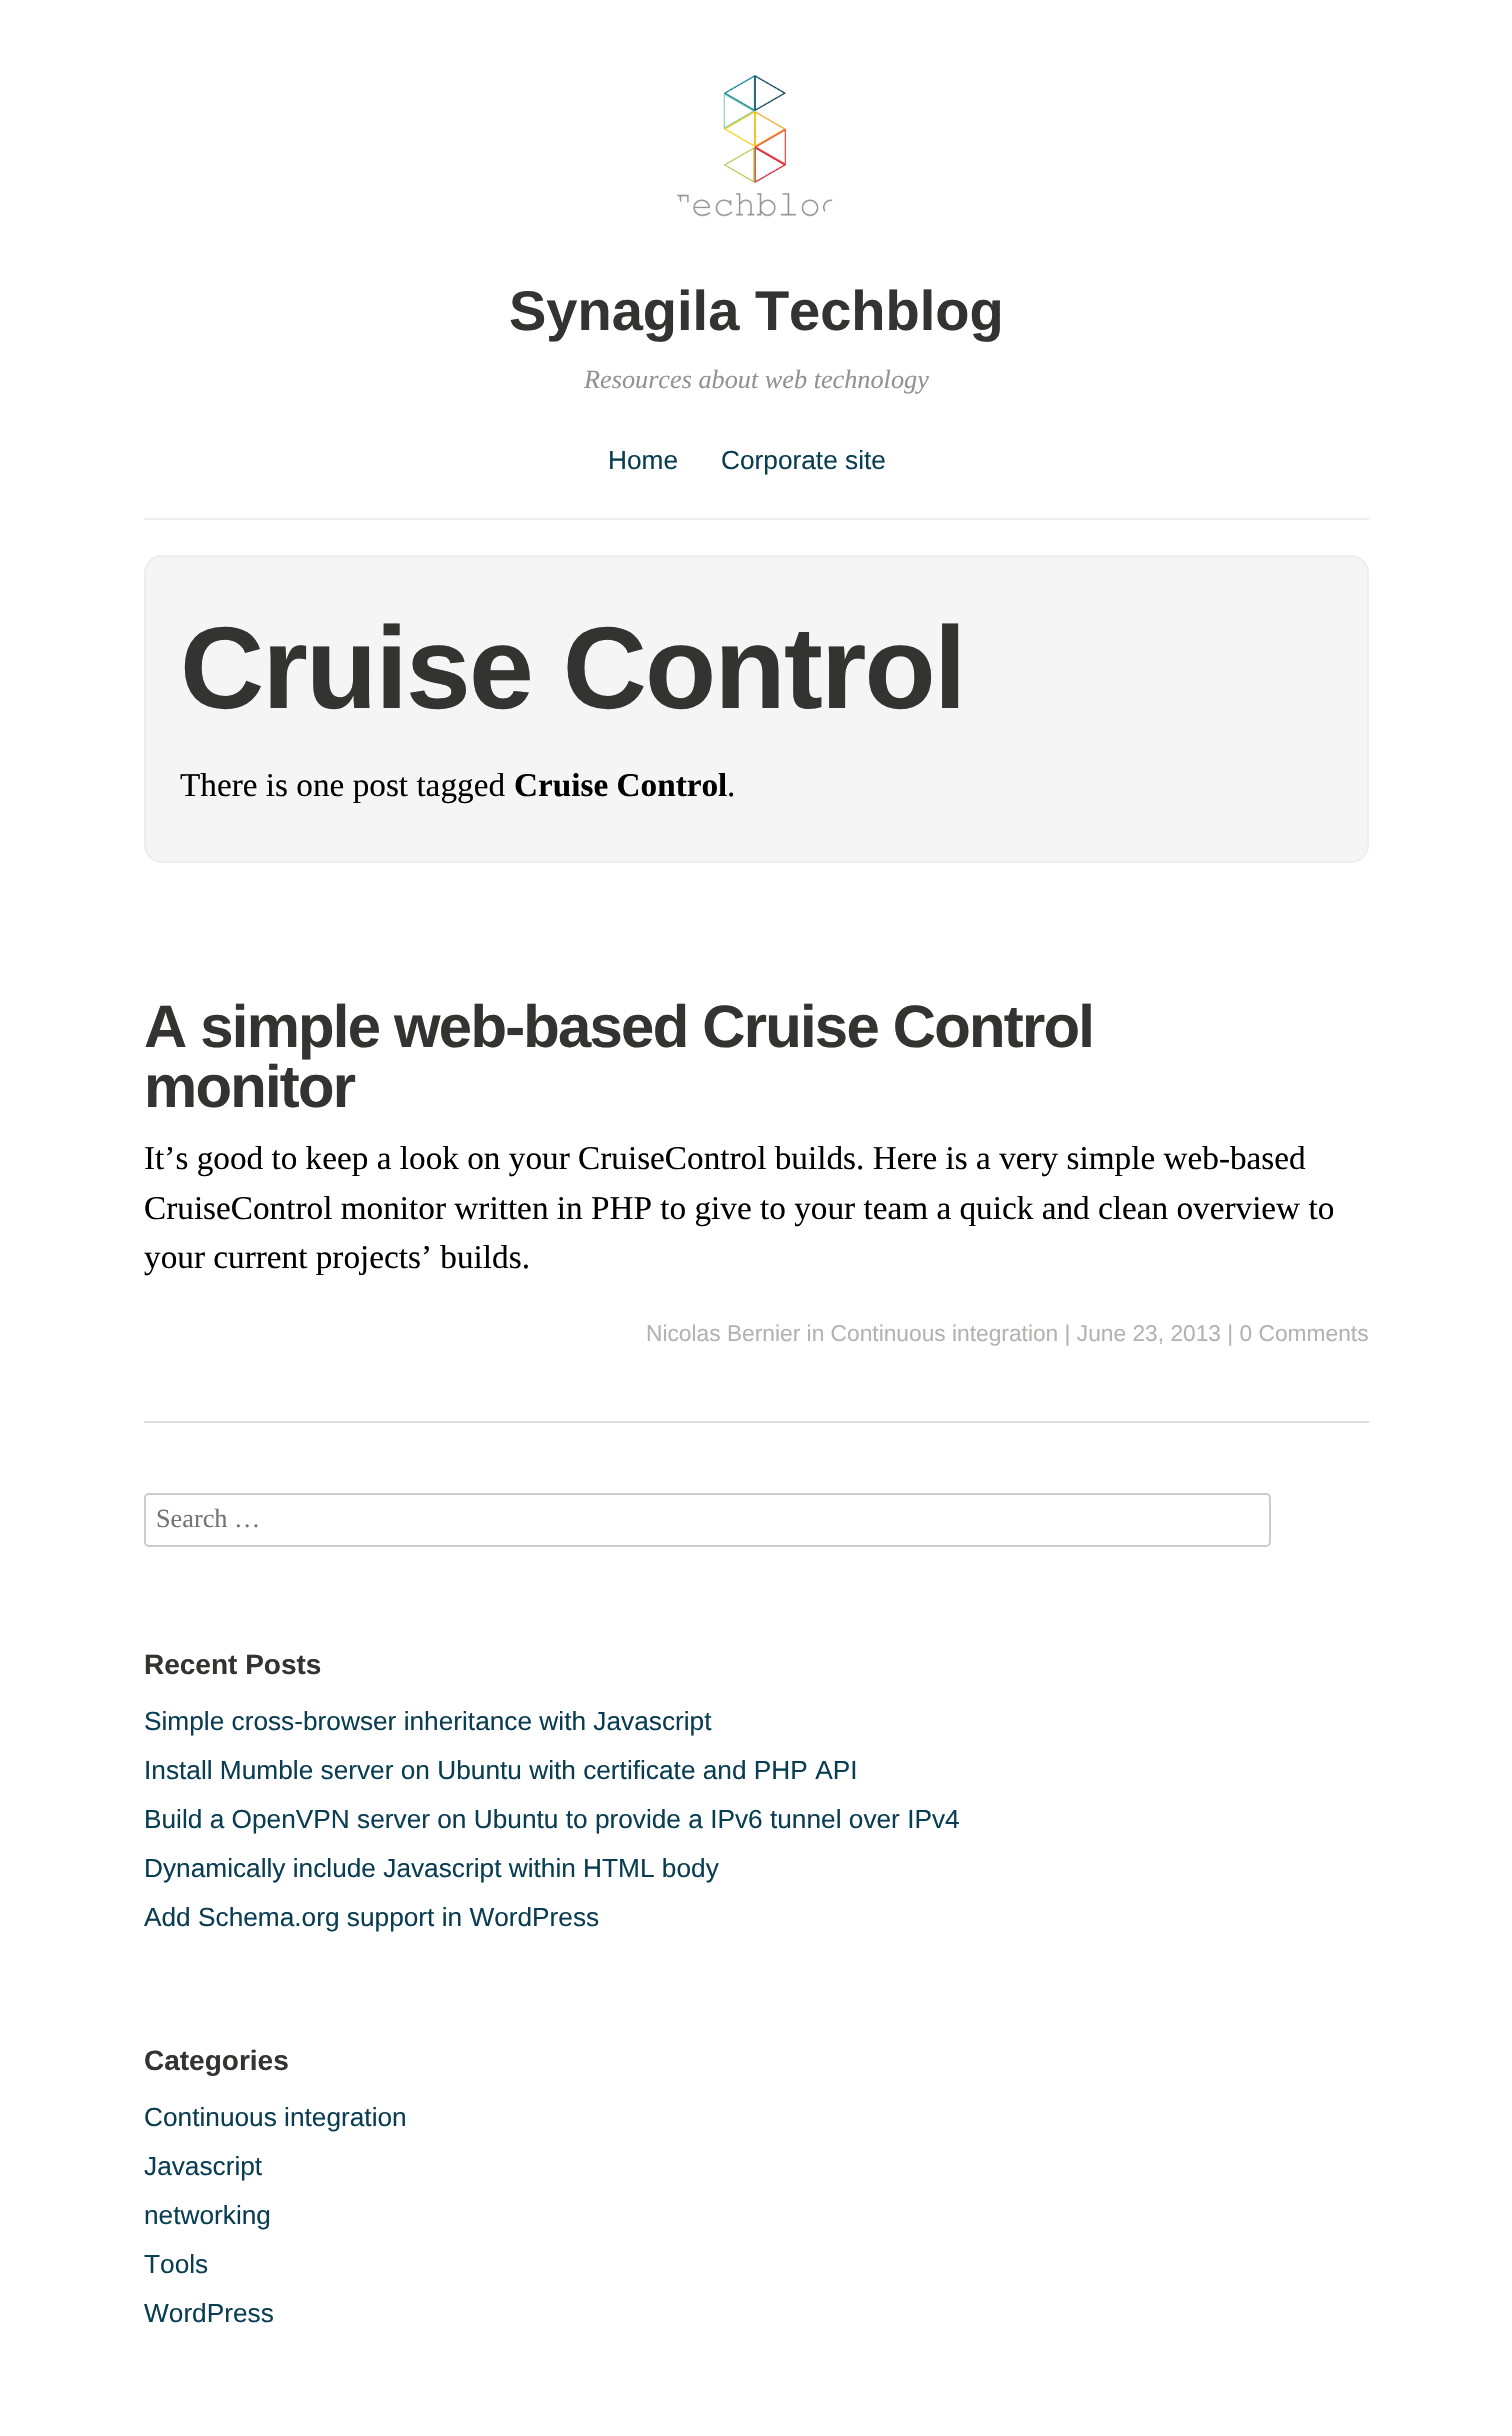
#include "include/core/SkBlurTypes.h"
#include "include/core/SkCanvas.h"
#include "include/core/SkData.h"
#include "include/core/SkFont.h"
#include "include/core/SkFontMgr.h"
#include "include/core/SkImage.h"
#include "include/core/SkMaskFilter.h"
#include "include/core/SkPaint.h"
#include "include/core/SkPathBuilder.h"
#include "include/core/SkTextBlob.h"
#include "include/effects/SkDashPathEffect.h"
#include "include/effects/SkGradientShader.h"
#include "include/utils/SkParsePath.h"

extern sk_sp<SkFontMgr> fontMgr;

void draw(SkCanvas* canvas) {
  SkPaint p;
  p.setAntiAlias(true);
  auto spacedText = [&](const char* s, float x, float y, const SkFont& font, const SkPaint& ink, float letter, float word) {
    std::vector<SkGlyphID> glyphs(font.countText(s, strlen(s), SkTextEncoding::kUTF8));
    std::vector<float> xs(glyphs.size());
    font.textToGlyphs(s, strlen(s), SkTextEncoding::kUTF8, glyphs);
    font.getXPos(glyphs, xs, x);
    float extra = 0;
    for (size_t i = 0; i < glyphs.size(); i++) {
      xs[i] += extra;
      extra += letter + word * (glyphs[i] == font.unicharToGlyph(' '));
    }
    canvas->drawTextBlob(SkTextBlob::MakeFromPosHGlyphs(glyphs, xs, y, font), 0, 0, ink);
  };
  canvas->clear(SK_ColorWHITE);
  canvas->drawImageRect(SkImages::DeferredFromEncodedData(SkData::MakeFromFileName("images/1.png")), SkRect::MakeLTRB(676, 75, 833, 217), SkSamplingOptions());
  p.setColor(SkColorSetRGB(238, 238, 238));
  canvas->drawRect(SkRect::MakeLTRB(144, 518, 1369, 520), p);
  p.setColor(SkColorSetRGB(245, 245, 245));
  canvas->drawRoundRect(SkRect::MakeLTRB(145, 556, 1368, 862), 17, 17, p);
  p.setStyle(SkPaint::kStroke_Style);
  p.setStrokeWidth(2);
  p.setColor(SkColorSetRGB(238, 238, 238));
  canvas->drawRoundRect(SkRect::MakeLTRB(145, 556, 1368, 862), 17, 17, p);
  p.setStyle(SkPaint::kFill_Style);
  p.setColor(SkColorSetRGB(221, 221, 221));
  canvas->drawRect(SkRect::MakeLTRB(144, 1421, 1369, 1423), p);
  p.setStyle(SkPaint::kStroke_Style);
  p.setColor(SkColorSetRGB(204, 204, 204));
  canvas->drawRoundRect(SkRect::MakeLTRB(145, 1494, 1270, 1546), 4, 4, p);
  SkFont font1(fontMgr->matchFamilyStyle("Liberation Sans", SkFontStyle::Bold()), 56);
  font1.setSubpixel(true);
  p.setStyle(SkPaint::kFill_Style);
  p.setColor(SkColorSetRGB(51, 51, 50));
  canvas->drawString("Synagila Techblog", 509, 330, font1, p);
  SkFont font2(fontMgr->matchFamilyStyle("Liberation Serif", SkFontStyle::Italic()), 26.25f);
  font2.setSubpixel(true);
  p.setColor(SkColorSetRGB(146, 146, 146));
  canvas->drawString("Resources about web technology", 584, 388, font2, p);
  SkFont font3(fontMgr->matchFamilyStyle("Liberation Sans", SkFontStyle::Normal()), 26.25f);
  font3.setSubpixel(true);
  p.setColor(SkColorSetRGB(9, 61, 82));
  canvas->drawString("Home", 608, 469, font3, p);
  canvas->drawString("Corporate site", 721, 469, font3, p);
  SkFont font4(fontMgr->matchFamilyStyle("Liberation Sans", SkFontStyle::Bold()), 116.5f);
  font4.setSubpixel(true);
  p.setColor(SkColorSetRGB(51, 51, 50));
  spacedText("Cruise Control", 180, 708, font4, p, -1.75f, 0);
  SkFont font5(fontMgr->matchFamilyStyle("Liberation Serif", SkFontStyle::Normal()), 33.25f);
  font5.setSubpixel(true);
  p.setColor(SK_ColorBLACK);
  canvas->drawString("There is one post tagged", 180, 796, font5, p);
  SkFont font6(fontMgr->matchFamilyStyle("Liberation Serif", SkFontStyle::Bold()), 33.25f);
  font6.setSubpixel(true);
  canvas->drawString("Cruise Control", 514, 796, font6, p);
  canvas->drawString(".", 727, 796, font5, p);
  SkFont font7(fontMgr->matchFamilyStyle("Liberation Sans", SkFontStyle::Bold()), 59.8f);
  font7.setSubpixel(true);
  p.setColor(SkColorSetRGB(51, 51, 50));
  spacedText("A simple web-based Cruise Control", 144, 1047, font7, p, -1.75f, 0);
  spacedText("monitor", 144, 1107, font7, p, -1.75f, 0);
  p.setColor(SK_ColorBLACK);
  canvas->drawString("It’s good to keep a look on your CruiseControl builds. Here is a very simple web-based", 144, 1169, font5, p);
  canvas->drawString("CruiseControl monitor written in PHP to give to your team a quick and clean overview to", 144, 1219, font5, p);
  canvas->drawString("your current projects’ builds.", 144, 1268, font5, p);
  SkFont font8(fontMgr->matchFamilyStyle("Liberation Sans", SkFontStyle::Normal()), 22.75f);
  font8.setSubpixel(true);
  p.setColor(SkColorSetRGB(179, 179, 177));
  canvas->drawString("Nicolas Bernier in Continuous integration | June 23, 2013 | 0 Comments", 646, 1341, font8, p);
  SkFont font9(fontMgr->matchFamilyStyle("Liberation Serif", SkFontStyle::Normal()), 26.25f);
  font9.setSubpixel(true);
  p.setColor(SkColorSetRGB(117, 117, 117));
  canvas->drawString("Search …", 156, 1527, font9, p);
  SkFont font10(fontMgr->matchFamilyStyle("Liberation Sans", SkFontStyle::Bold()), 28);
  font10.setSubpixel(true);
  p.setColor(SkColorSetRGB(51, 51, 50));
  canvas->drawString("Recent Posts", 144, 1674, font10, p);
  p.setColor(SkColorSetRGB(9, 61, 82));
  canvas->drawString("Simple cross-browser inheritance with Javascript", 144, 1730, font3, p);
  canvas->drawString("Install Mumble server on Ubuntu with certificate and PHP API", 144, 1779, font3, p);
  canvas->drawString("Build a OpenVPN server on Ubuntu to provide a IPv6 tunnel over IPv4", 144, 1828, font3, p);
  canvas->drawString("Dynamically include Javascript within HTML body", 144, 1877, font3, p);
  canvas->drawString("Add Schema.org support in WordPress", 144, 1926, font3, p);
  p.setColor(SkColorSetRGB(51, 51, 50));
  canvas->drawString("Categories", 144, 2070, font10, p);
  p.setColor(SkColorSetRGB(9, 61, 82));
  canvas->drawString("Continuous integration", 144, 2126, font3, p);
  canvas->drawString("Javascript", 144, 2175, font3, p);
  canvas->drawString("networking", 144, 2224, font3, p);
  canvas->drawString("Tools", 144, 2273, font3, p);
  canvas->drawString("WordPress", 144, 2322, font3, p);
}
